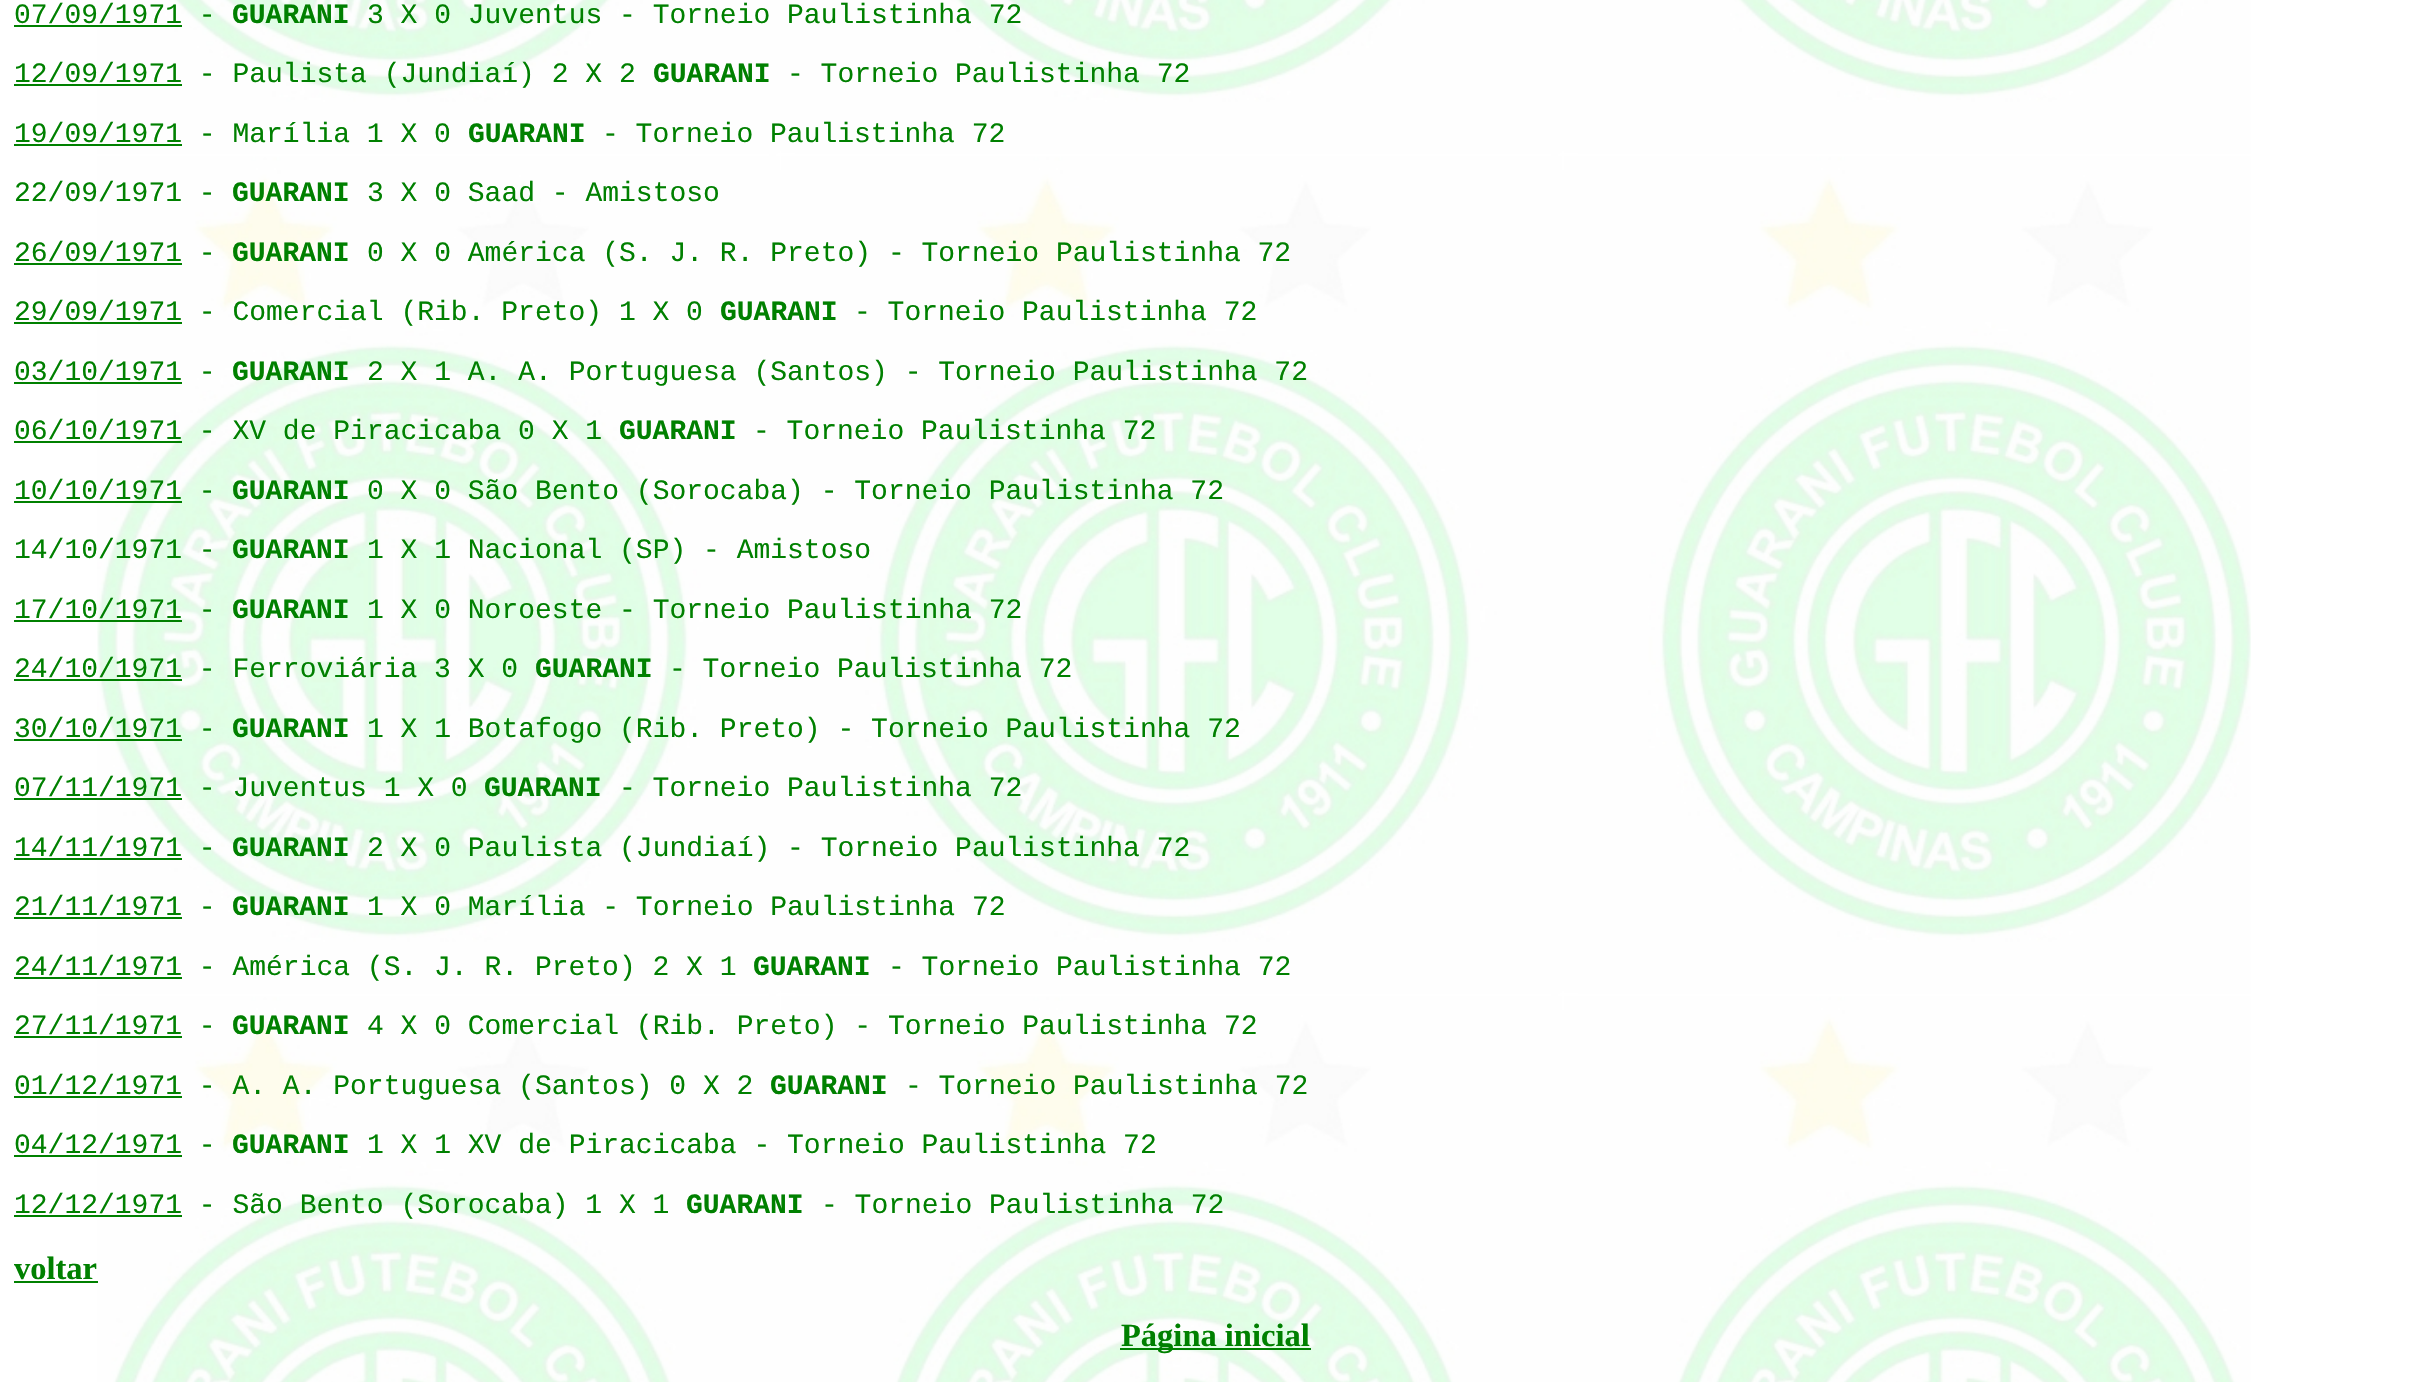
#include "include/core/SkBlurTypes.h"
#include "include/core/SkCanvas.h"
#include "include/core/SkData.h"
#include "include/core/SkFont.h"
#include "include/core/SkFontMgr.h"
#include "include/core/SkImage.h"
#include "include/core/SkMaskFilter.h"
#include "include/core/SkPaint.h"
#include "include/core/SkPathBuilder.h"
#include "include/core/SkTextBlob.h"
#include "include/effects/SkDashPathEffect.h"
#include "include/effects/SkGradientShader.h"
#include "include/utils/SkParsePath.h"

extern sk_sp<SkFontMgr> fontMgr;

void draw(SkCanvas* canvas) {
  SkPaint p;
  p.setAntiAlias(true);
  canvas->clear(SK_ColorWHITE);
  canvas->drawImageRect(SkImages::DeferredFromEncodedData(SkData::MakeFromFileName("images/1.png")), SkRect::MakeLTRB(97, 0, 2251, 1382), SkSamplingOptions());
  p.setColor(SkColorSetRGB(0, 128, 0));
  canvas->drawRect(SkRect::MakeLTRB(14, 25, 182, 27), p);
  canvas->drawRect(SkRect::MakeLTRB(14, 84, 182, 86), p);
  canvas->drawRect(SkRect::MakeLTRB(14, 144, 182, 146), p);
  canvas->drawRect(SkRect::MakeLTRB(14, 263, 182, 265), p);
  canvas->drawRect(SkRect::MakeLTRB(14, 322, 182, 324), p);
  canvas->drawRect(SkRect::MakeLTRB(14, 382, 182, 384), p);
  canvas->drawRect(SkRect::MakeLTRB(14, 441, 182, 443), p);
  canvas->drawRect(SkRect::MakeLTRB(14, 501, 182, 503), p);
  canvas->drawRect(SkRect::MakeLTRB(14, 620, 182, 622), p);
  canvas->drawRect(SkRect::MakeLTRB(14, 679, 182, 681), p);
  canvas->drawRect(SkRect::MakeLTRB(14, 739, 182, 741), p);
  canvas->drawRect(SkRect::MakeLTRB(14, 798, 182, 800), p);
  canvas->drawRect(SkRect::MakeLTRB(14, 858, 182, 860), p);
  canvas->drawRect(SkRect::MakeLTRB(14, 917, 182, 919), p);
  canvas->drawRect(SkRect::MakeLTRB(14, 977, 182, 979), p);
  canvas->drawRect(SkRect::MakeLTRB(14, 1036, 182, 1038), p);
  canvas->drawRect(SkRect::MakeLTRB(14, 1096, 182, 1098), p);
  canvas->drawRect(SkRect::MakeLTRB(14, 1155, 182, 1157), p);
  canvas->drawRect(SkRect::MakeLTRB(14, 1215, 182, 1217), p);
  canvas->drawRect(SkRect::MakeLTRB(14, 1281, 98, 1283), p);
  canvas->drawRect(SkRect::MakeLTRB(1120, 1348, 1311, 1350), p);
  SkFont font1(fontMgr->matchFamilyStyle("Liberation Mono", SkFontStyle::Normal()), 28);
  font1.setSubpixel(true);
  canvas->drawString("07/09/1971 -", 14, 23, font1, p);
  SkFont font2(fontMgr->matchFamilyStyle("Liberation Mono", SkFontStyle::Bold()), 28);
  font2.setSubpixel(true);
  canvas->drawString("GUARANI", 232, 23, font2, p);
  canvas->drawString("3 X 0 Juventus - Torneio Paulistinha 72", 367, 23, font1, p);
  canvas->drawString("12/09/1971 - Paulista (Jundiaí) 2 X 2", 14, 82, font1, p);
  canvas->drawString("GUARANI", 653, 82, font2, p);
  canvas->drawString("- Torneio Paulistinha 72", 787, 82, font1, p);
  canvas->drawString("19/09/1971 - Marília 1 X 0", 14, 142, font1, p);
  canvas->drawString("GUARANI", 468, 142, font2, p);
  canvas->drawString("- Torneio Paulistinha 72", 602, 142, font1, p);
  canvas->drawString("22/09/1971 -", 14, 201, font1, p);
  canvas->drawString("GUARANI", 232, 201, font2, p);
  canvas->drawString("3 X 0 Saad - Amistoso", 367, 201, font1, p);
  canvas->drawString("26/09/1971 -", 14, 261, font1, p);
  canvas->drawString("GUARANI", 232, 261, font2, p);
  canvas->drawString("0 X 0 América (S. J. R. Preto) - Torneio Paulistinha 72", 367, 261, font1, p);
  canvas->drawString("29/09/1971 - Comercial (Rib. Preto) 1 X 0", 14, 320, font1, p);
  canvas->drawString("GUARANI", 720, 320, font2, p);
  canvas->drawString("- Torneio Paulistinha 72", 854, 320, font1, p);
  canvas->drawString("03/10/1971 -", 14, 380, font1, p);
  canvas->drawString("GUARANI", 232, 380, font2, p);
  canvas->drawString("2 X 1 A. A. Portuguesa (Santos) - Torneio Paulistinha 72", 367, 380, font1, p);
  canvas->drawString("06/10/1971 - XV de Piracicaba 0 X 1", 14, 439, font1, p);
  canvas->drawString("GUARANI", 619, 439, font2, p);
  canvas->drawString("- Torneio Paulistinha 72", 753, 439, font1, p);
  canvas->drawString("10/10/1971 -", 14, 499, font1, p);
  canvas->drawString("GUARANI", 232, 499, font2, p);
  canvas->drawString("0 X 0 São Bento (Sorocaba) - Torneio Paulistinha 72", 367, 499, font1, p);
  canvas->drawString("14/10/1971 -", 14, 558, font1, p);
  canvas->drawString("GUARANI", 232, 558, font2, p);
  canvas->drawString("1 X 1 Nacional (SP) - Amistoso", 367, 558, font1, p);
  canvas->drawString("17/10/1971 -", 14, 618, font1, p);
  canvas->drawString("GUARANI", 232, 618, font2, p);
  canvas->drawString("1 X 0 Noroeste - Torneio Paulistinha 72", 367, 618, font1, p);
  canvas->drawString("24/10/1971 - Ferroviária 3 X 0", 14, 677, font1, p);
  canvas->drawString("GUARANI", 535, 677, font2, p);
  canvas->drawString("- Torneio Paulistinha 72", 669, 677, font1, p);
  canvas->drawString("30/10/1971 -", 14, 737, font1, p);
  canvas->drawString("GUARANI", 232, 737, font2, p);
  canvas->drawString("1 X 1 Botafogo (Rib. Preto) - Torneio Paulistinha 72", 367, 737, font1, p);
  canvas->drawString("07/11/1971 - Juventus 1 X 0", 14, 796, font1, p);
  canvas->drawString("GUARANI", 484, 796, font2, p);
  canvas->drawString("- Torneio Paulistinha 72", 619, 796, font1, p);
  canvas->drawString("14/11/1971 -", 14, 856, font1, p);
  canvas->drawString("GUARANI", 232, 856, font2, p);
  canvas->drawString("2 X 0 Paulista (Jundiaí) - Torneio Paulistinha 72", 367, 856, font1, p);
  canvas->drawString("21/11/1971 -", 14, 915, font1, p);
  canvas->drawString("GUARANI", 232, 915, font2, p);
  canvas->drawString("1 X 0 Marília - Torneio Paulistinha 72", 367, 915, font1, p);
  canvas->drawString("24/11/1971 - América (S. J. R. Preto) 2 X 1", 14, 975, font1, p);
  canvas->drawString("GUARANI", 753, 975, font2, p);
  canvas->drawString("- Torneio Paulistinha 72", 888, 975, font1, p);
  canvas->drawString("27/11/1971 -", 14, 1034, font1, p);
  canvas->drawString("GUARANI", 232, 1034, font2, p);
  canvas->drawString("4 X 0 Comercial (Rib. Preto) - Torneio Paulistinha 72", 367, 1034, font1, p);
  canvas->drawString("01/12/1971 - A. A. Portuguesa (Santos) 0 X 2", 14, 1094, font1, p);
  canvas->drawString("GUARANI", 770, 1094, font2, p);
  canvas->drawString("- Torneio Paulistinha 72", 905, 1094, font1, p);
  canvas->drawString("04/12/1971 -", 14, 1153, font1, p);
  canvas->drawString("GUARANI", 232, 1153, font2, p);
  canvas->drawString("1 X 1 XV de Piracicaba - Torneio Paulistinha 72", 367, 1153, font1, p);
  canvas->drawString("12/12/1971 - São Bento (Sorocaba) 1 X 1", 14, 1213, font1, p);
  canvas->drawString("GUARANI", 686, 1213, font2, p);
  canvas->drawString("- Torneio Paulistinha 72", 821, 1213, font1, p);
  SkFont font3(fontMgr->matchFamilyStyle("Liberation Serif", SkFontStyle::Bold()), 32.5f);
  font3.setSubpixel(true);
  canvas->drawString("voltar", 14, 1279, font3, p);
  canvas->drawString("Página inicial", 1121, 1346, font3, p);
}
